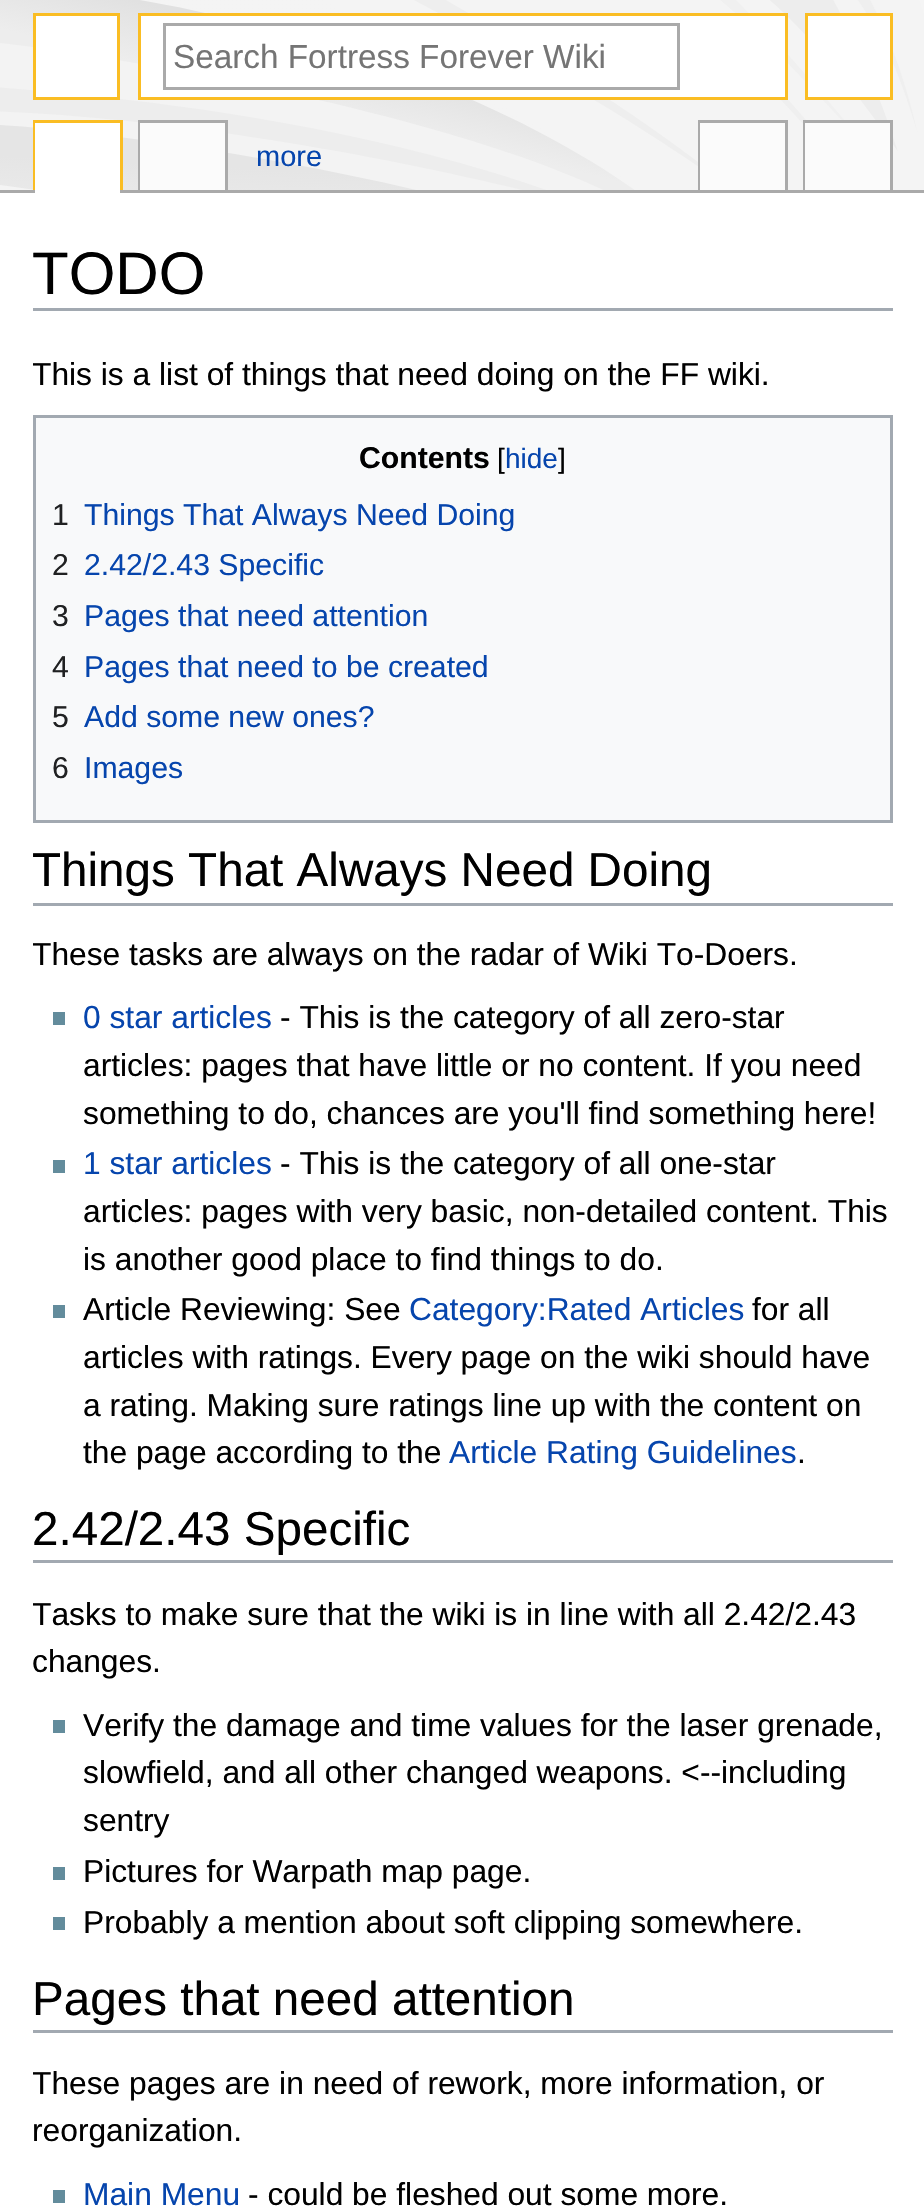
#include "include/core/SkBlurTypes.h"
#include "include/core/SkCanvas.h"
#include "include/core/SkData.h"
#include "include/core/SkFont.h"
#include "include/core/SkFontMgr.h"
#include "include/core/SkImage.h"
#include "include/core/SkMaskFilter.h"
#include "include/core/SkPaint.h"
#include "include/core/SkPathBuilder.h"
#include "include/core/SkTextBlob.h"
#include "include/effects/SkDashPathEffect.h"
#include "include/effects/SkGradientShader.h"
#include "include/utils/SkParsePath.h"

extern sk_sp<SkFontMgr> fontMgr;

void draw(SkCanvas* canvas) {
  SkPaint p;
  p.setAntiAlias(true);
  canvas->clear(SK_ColorWHITE);
  canvas->drawImageRect(SkImages::DeferredFromEncodedData(SkData::MakeFromFileName("images/1.png")), SkRect::MakeLTRB(0, 0, 924, 190), SkSamplingOptions());
  p.setColor(SK_ColorWHITE);
  canvas->drawRect(SkRect::MakeLTRB(34.5f, 14.5f, 118.5f, 98.5f), p);
  p.setStyle(SkPaint::kStroke_Style);
  p.setStrokeWidth(3);
  p.setColor(SkColorSetRGB(250, 189, 35));
  canvas->drawRect(SkRect::MakeLTRB(34.5f, 14.5f, 118.5f, 98.5f), p);
  p.setStyle(SkPaint::kFill_Style);
  p.setColor(SK_ColorWHITE);
  canvas->drawRect(SkRect::MakeLTRB(139.5f, 14.5f, 786.5f, 98.5f), p);
  p.setStyle(SkPaint::kStroke_Style);
  p.setColor(SkColorSetRGB(250, 189, 35));
  canvas->drawRect(SkRect::MakeLTRB(139.5f, 14.5f, 786.5f, 98.5f), p);
  p.setColor(SkColorSetRGB(170, 170, 170));
  canvas->drawRect(SkRect::MakeLTRB(164.5f, 24.5f, 678.5f, 88.5f), p);
  p.setStyle(SkPaint::kFill_Style);
  p.setColor(SK_ColorWHITE);
  canvas->drawRect(SkRect::MakeLTRB(806.5f, 14.5f, 891.5f, 98.5f), p);
  p.setStyle(SkPaint::kStroke_Style);
  p.setColor(SkColorSetRGB(250, 189, 35));
  canvas->drawRect(SkRect::MakeLTRB(806.5f, 14.5f, 891.5f, 98.5f), p);
  p.setStyle(SkPaint::kFill_Style);
  canvas->drawRect(SkRect::MakeLTRB(33, 120, 123, 123), p);
  canvas->drawRect(SkRect::MakeLTRB(120, 120, 123, 193), p);
  canvas->drawRect(SkRect::MakeLTRB(33, 120, 36, 193), p);
  p.setColor(SkColorSetRGB(170, 170, 170));
  canvas->drawRect(SkRect::MakeLTRB(138, 120, 228, 123), p);
  canvas->drawRect(SkRect::MakeLTRB(225, 120, 228, 193), p);
  canvas->drawRect(SkRect::MakeLTRB(138, 120, 141, 193), p);
  canvas->drawRect(SkRect::MakeLTRB(698, 120, 788, 123), p);
  canvas->drawRect(SkRect::MakeLTRB(785, 120, 788, 193), p);
  canvas->drawRect(SkRect::MakeLTRB(698, 120, 701, 193), p);
  canvas->drawRect(SkRect::MakeLTRB(803, 120, 893, 123), p);
  canvas->drawRect(SkRect::MakeLTRB(890, 120, 893, 193), p);
  canvas->drawRect(SkRect::MakeLTRB(803, 120, 806, 193), p);
  canvas->drawRect(SkRect::MakeLTRB(0, 190, 924, 193), p);
  p.setColor(SK_ColorWHITE);
  canvas->drawRect(SkRect::MakeLTRB(35, 123, 120, 193), p);
  p.setColor(SkColorSetRGB(251, 251, 251));
  canvas->drawRect(SkRect::MakeLTRB(140, 123, 225, 190), p);
  canvas->drawRect(SkRect::MakeLTRB(700, 123, 785, 190), p);
  canvas->drawRect(SkRect::MakeLTRB(805, 123, 890, 190), p);
  p.setColor(SkColorSetRGB(162, 169, 177));
  canvas->drawRect(SkRect::MakeLTRB(33, 308, 893, 311), p);
  p.setColor(SkColorSetRGB(248, 249, 250));
  canvas->drawRect(SkRect::MakeLTRB(34.5f, 416.5f, 891.5f, 821.5f), p);
  p.setStyle(SkPaint::kStroke_Style);
  p.setColor(SkColorSetRGB(162, 169, 177));
  canvas->drawRect(SkRect::MakeLTRB(34.5f, 416.5f, 891.5f, 821.5f), p);
  p.setStyle(SkPaint::kFill_Style);
  canvas->drawRect(SkRect::MakeLTRB(33, 903, 893, 906), p);
  p.setColor(SkColorSetRGB(99, 140, 156));
  canvas->drawRect(SkRect::MakeLTRB(53, 1012, 65, 1025), p);
  canvas->drawRect(SkRect::MakeLTRB(53, 1160, 65, 1173), p);
  canvas->drawRect(SkRect::MakeLTRB(53, 1305, 65, 1318), p);
  p.setColor(SkColorSetRGB(162, 169, 177));
  canvas->drawRect(SkRect::MakeLTRB(33, 1560, 893, 1563), p);
  p.setColor(SkColorSetRGB(99, 140, 156));
  canvas->drawRect(SkRect::MakeLTRB(53, 1720, 65, 1733), p);
  canvas->drawRect(SkRect::MakeLTRB(53, 1867, 65, 1880), p);
  canvas->drawRect(SkRect::MakeLTRB(53, 1917, 65, 1930), p);
  p.setColor(SkColorSetRGB(162, 169, 177));
  canvas->drawRect(SkRect::MakeLTRB(33, 2030, 893, 2033), p);
  p.setColor(SkColorSetRGB(99, 140, 156));
  canvas->drawRect(SkRect::MakeLTRB(53, 2190, 65, 2203), p);
  SkFont font1(fontMgr->matchFamilyStyle("Liberation Sans", SkFontStyle::Normal()), 33.3f);
  font1.setSubpixel(true);
  p.setColor(SkColorSetRGB(117, 117, 117));
  canvas->drawString("Search Fortress Forever Wiki", 173, 68, font1, p);
  SkFont font2(fontMgr->matchFamilyStyle("Liberation Sans", SkFontStyle::Normal()), 29);
  font2.setSubpixel(true);
  p.setColor(SkColorSetRGB(6, 69, 173));
  canvas->drawString("more", 256, 166, font2, p);
  SkFont font3(fontMgr->matchFamilyStyle("Liberation Sans", SkFontStyle::Normal()), 60);
  font3.setSubpixel(true);
  p.setColor(SK_ColorBLACK);
  canvas->drawString("TODO", 32, 294, font3, p);
  canvas->save();
  canvas->clipRect(SkRect::MakeLTRB(33, 315, 893, 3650));
  SkFont font4(fontMgr->matchFamilyStyle("Liberation Sans", SkFontStyle::Normal()), 31.75f);
  font4.setSubpixel(true);
  canvas->drawString("This is a list of things that need doing on the FF wiki.", 32, 385, font4, p);
  canvas->restore();
  SkFont font5(fontMgr->matchFamilyStyle("Liberation Sans", SkFontStyle::Bold()), 30.2f);
  font5.setSubpixel(true);
  canvas->drawString("Contents", 359, 468, font5, p);
  SkFont font6(fontMgr->matchFamilyStyle("Liberation Sans", SkFontStyle::Normal()), 28);
  font6.setSubpixel(true);
  canvas->drawString("[", 497, 468, font6, p);
  p.setColor(SkColorSetRGB(6, 69, 173));
  canvas->drawString("hide", 505, 468, font6, p);
  p.setColor(SK_ColorBLACK);
  canvas->drawString("]", 558, 468, font6, p);
  SkFont font7(fontMgr->matchFamilyStyle("Liberation Sans", SkFontStyle::Normal()), 30.2f);
  font7.setSubpixel(true);
  p.setColor(SkColorSetRGB(32, 33, 34));
  canvas->drawString("1", 52, 525, font7, p);
  p.setColor(SkColorSetRGB(6, 69, 173));
  canvas->drawString("Things That Always Need Doing", 84, 525, font7, p);
  p.setColor(SkColorSetRGB(32, 33, 34));
  canvas->drawString("2", 52, 575, font7, p);
  p.setColor(SkColorSetRGB(6, 69, 173));
  canvas->drawString("2.42/2.43 Specific", 84, 575, font7, p);
  p.setColor(SkColorSetRGB(32, 33, 34));
  canvas->drawString("3", 52, 626, font7, p);
  p.setColor(SkColorSetRGB(6, 69, 173));
  canvas->drawString("Pages that need attention", 84, 626, font7, p);
  p.setColor(SkColorSetRGB(32, 33, 34));
  canvas->drawString("4", 52, 677, font7, p);
  p.setColor(SkColorSetRGB(6, 69, 173));
  canvas->drawString("Pages that need to be created", 84, 677, font7, p);
  p.setColor(SkColorSetRGB(32, 33, 34));
  canvas->drawString("5", 52, 727, font7, p);
  p.setColor(SkColorSetRGB(6, 69, 173));
  canvas->drawString("Add some new ones?", 84, 727, font7, p);
  p.setColor(SkColorSetRGB(32, 33, 34));
  canvas->drawString("6", 52, 778, font7, p);
  p.setColor(SkColorSetRGB(6, 69, 173));
  canvas->drawString("Images", 84, 778, font7, p);
  canvas->save();
  canvas->clipRect(SkRect::MakeLTRB(33, 823, 893, 903));
  SkFont font8(fontMgr->matchFamilyStyle("Liberation Sans", SkFontStyle::Normal()), 47.6f);
  font8.setSubpixel(true);
  p.setColor(SK_ColorBLACK);
  canvas->drawString("Things That Always Need Doing", 32, 886, font8, p);
  canvas->restore();
  canvas->save();
  canvas->clipRect(SkRect::MakeLTRB(33, 315, 893, 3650));
  canvas->drawString("These tasks are always on the radar of Wiki To-Doers.", 32, 965, font4, p);
  canvas->restore();
  p.setColor(SkColorSetRGB(6, 69, 173));
  canvas->drawString("0 star articles", 83, 1028, font4, p);
  p.setColor(SK_ColorBLACK);
  canvas->drawString("- This is the category of all zero-star", 280, 1028, font4, p);
  canvas->drawString("articles: pages that have little or no content. If you need", 83, 1076, font4, p);
  canvas->drawString("something to do, chances are you'll find something here!", 83, 1124, font4, p);
  p.setColor(SkColorSetRGB(6, 69, 173));
  canvas->drawString("1 star articles", 83, 1174, font4, p);
  p.setColor(SK_ColorBLACK);
  canvas->drawString("- This is the category of all one-star", 280, 1174, font4, p);
  canvas->drawString("articles: pages with very basic, non-detailed content. This", 83, 1222, font4, p);
  canvas->drawString("is another good place to find things to do.", 83, 1270, font4, p);
  canvas->drawString("Article Reviewing: See", 83, 1320, font4, p);
  p.setColor(SkColorSetRGB(6, 69, 173));
  canvas->drawString("Category:Rated Articles", 409, 1320, font4, p);
  p.setColor(SK_ColorBLACK);
  canvas->drawString("for all", 752, 1320, font4, p);
  canvas->drawString("articles with ratings. Every page on the wiki should have", 83, 1368, font4, p);
  canvas->drawString("a rating. Making sure ratings line up with the content on", 83, 1416, font4, p);
  canvas->drawString("the page according to the", 83, 1463, font4, p);
  p.setColor(SkColorSetRGB(6, 69, 173));
  canvas->drawString("Article Rating Guidelines", 449, 1463, font4, p);
  p.setColor(SK_ColorBLACK);
  canvas->drawString(".", 797, 1463, font4, p);
  canvas->drawString("2.42/2.43 Specific", 32, 1545, font8, p);
  canvas->save();
  canvas->clipRect(SkRect::MakeLTRB(33, 315, 893, 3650));
  canvas->drawString("Tasks to make sure that the wiki is in line with all 2.42/2.43", 32, 1625, font4, p);
  canvas->restore();
  canvas->drawString("changes.", 32, 1672, font4, p);
  canvas->drawString("Verify the damage and time values for the laser grenade,", 83, 1736, font4, p);
  canvas->drawString("slowfield, and all other changed weapons. <--including", 83, 1783, font4, p);
  canvas->drawString("sentry", 83, 1831, font4, p);
  canvas->drawString("Pictures for Warpath map page.", 83, 1882, font4, p);
  canvas->drawString("Probably a mention about soft clipping somewhere.", 83, 1933, font4, p);
  canvas->drawString("Pages that need attention", 32, 2015, font8, p);
  canvas->save();
  canvas->clipRect(SkRect::MakeLTRB(33, 315, 893, 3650));
  canvas->drawString("These pages are in need of rework, more information, or", 32, 2094, font4, p);
  canvas->restore();
  canvas->drawString("reorganization.", 32, 2141, font4, p);
  p.setColor(SkColorSetRGB(6, 69, 173));
  canvas->drawString("Main Menu", 83, 2205, font4, p);
  p.setColor(SK_ColorBLACK);
  canvas->drawString("- could be fleshed out some more.", 248, 2205, font4, p);
}
